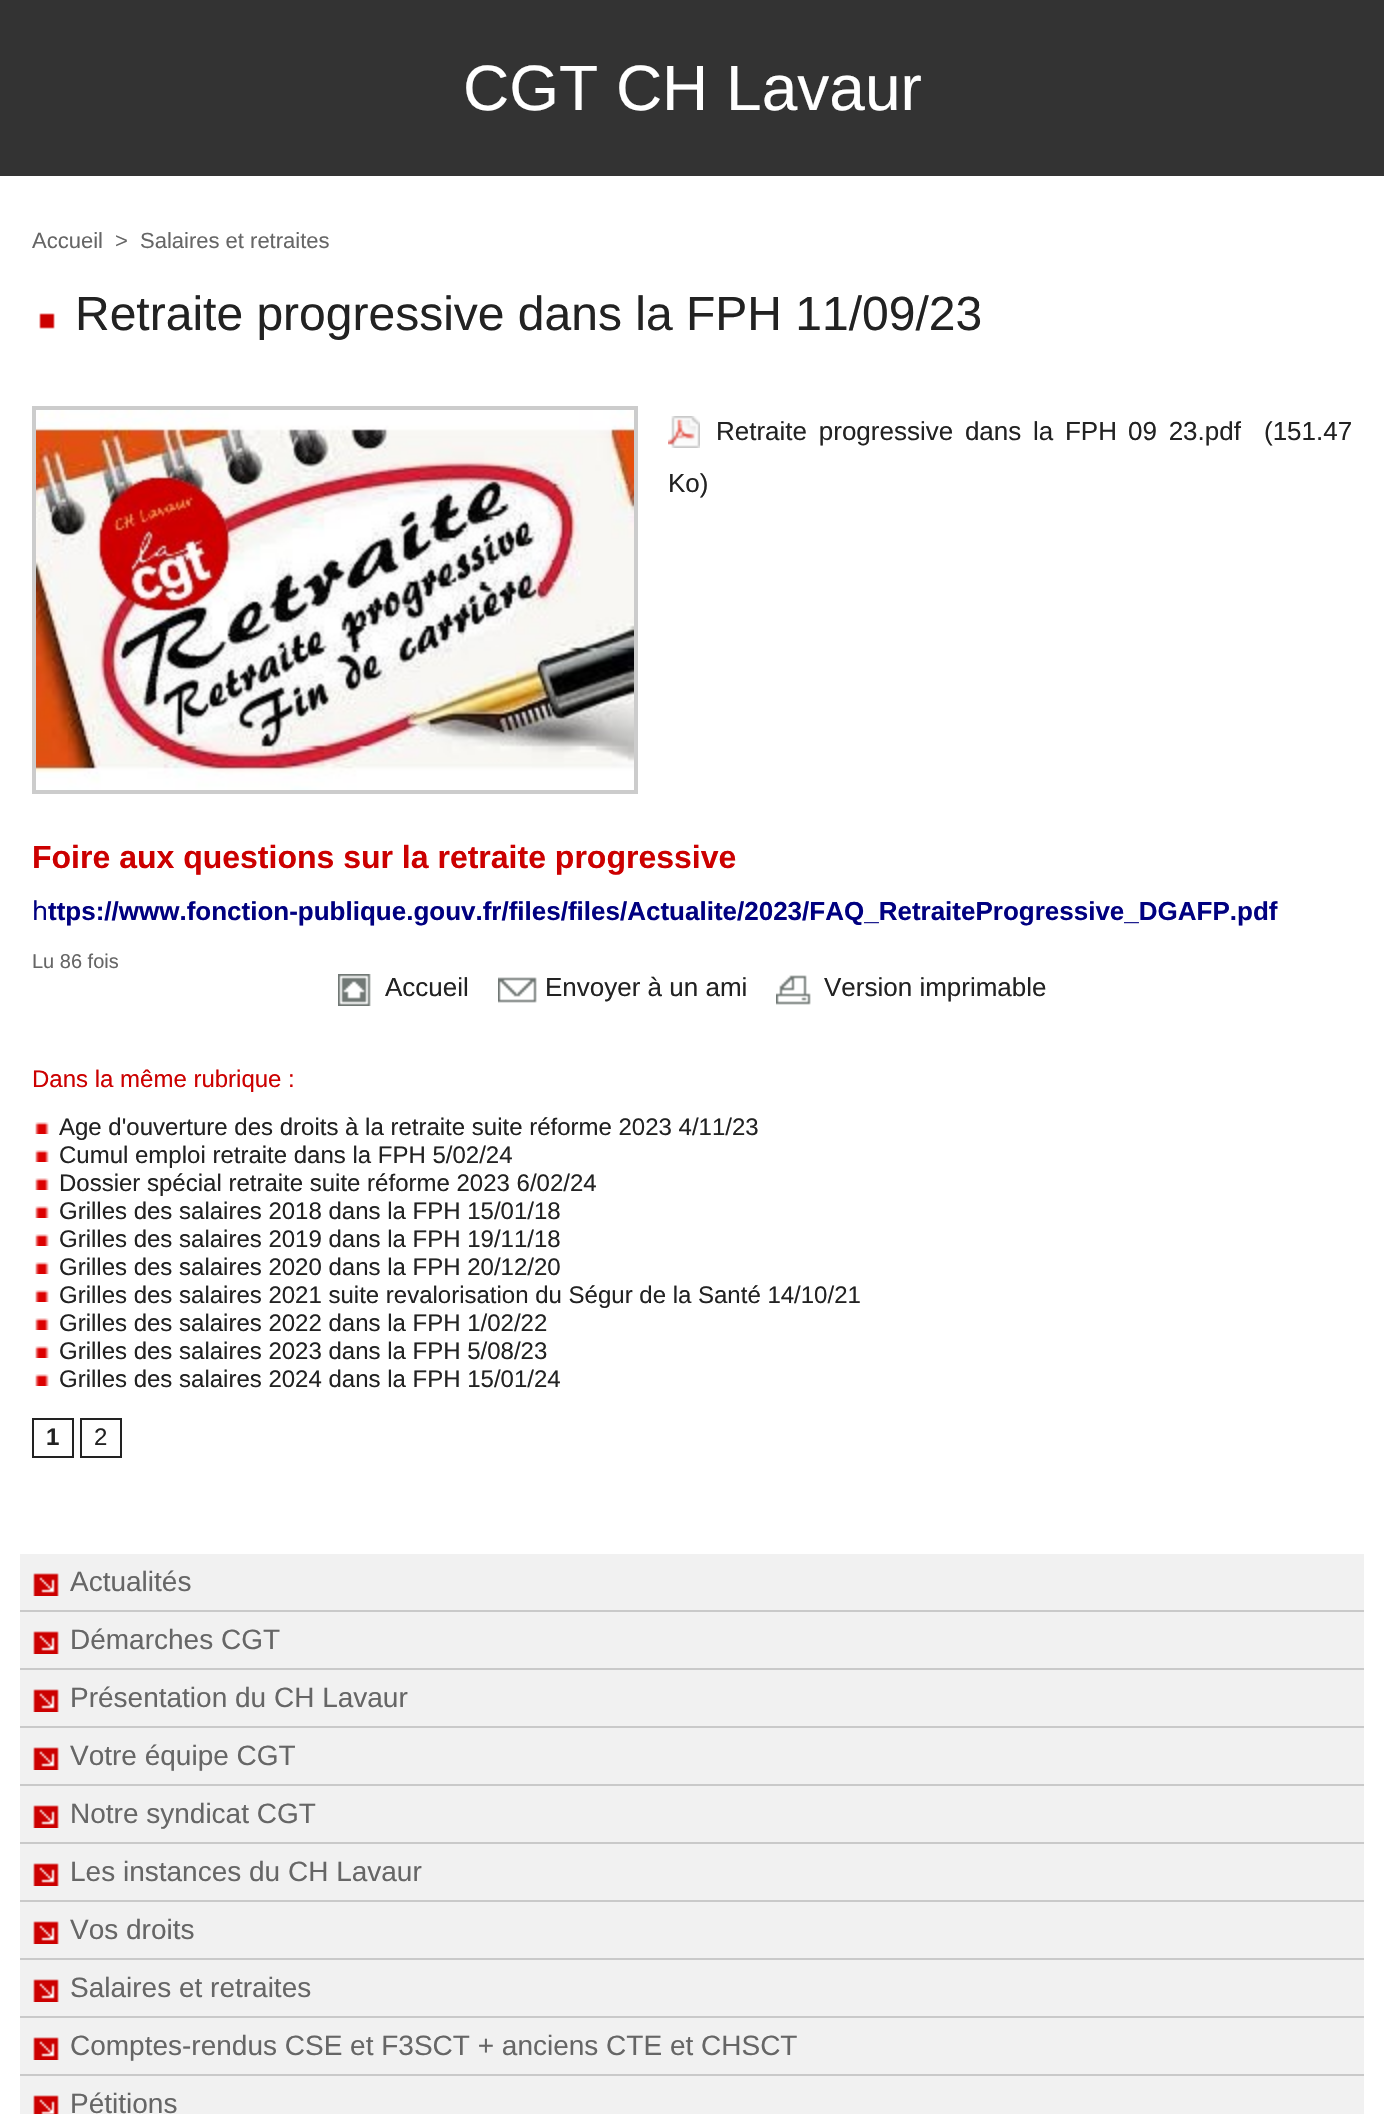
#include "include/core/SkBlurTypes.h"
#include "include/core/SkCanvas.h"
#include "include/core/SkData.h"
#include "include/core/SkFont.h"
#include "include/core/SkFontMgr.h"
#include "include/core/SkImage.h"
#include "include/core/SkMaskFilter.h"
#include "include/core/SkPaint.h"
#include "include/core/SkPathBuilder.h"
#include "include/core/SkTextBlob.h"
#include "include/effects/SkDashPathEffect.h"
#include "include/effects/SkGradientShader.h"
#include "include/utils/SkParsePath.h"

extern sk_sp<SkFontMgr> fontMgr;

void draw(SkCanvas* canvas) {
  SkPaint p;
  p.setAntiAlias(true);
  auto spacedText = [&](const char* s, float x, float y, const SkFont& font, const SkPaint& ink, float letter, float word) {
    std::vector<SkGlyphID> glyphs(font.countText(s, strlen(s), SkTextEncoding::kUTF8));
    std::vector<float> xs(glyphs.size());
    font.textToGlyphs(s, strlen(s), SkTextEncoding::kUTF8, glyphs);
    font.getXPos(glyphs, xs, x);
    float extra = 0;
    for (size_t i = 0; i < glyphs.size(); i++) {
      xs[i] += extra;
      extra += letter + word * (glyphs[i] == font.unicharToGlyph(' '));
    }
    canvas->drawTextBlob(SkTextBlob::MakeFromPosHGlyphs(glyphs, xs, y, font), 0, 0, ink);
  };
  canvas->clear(SK_ColorWHITE);
  p.setColor(SkColorSetRGB(51, 51, 51));
  canvas->drawRect(SkRect::MakeLTRB(0, 0, 1384, 176), p);
  canvas->drawImageRect(SkImages::DeferredFromEncodedData(SkData::MakeFromFileName("images/1.png")), SkRect::MakeLTRB(39, 313, 55, 329), SkSamplingOptions());
  p.setStyle(SkPaint::kStroke_Style);
  p.setStrokeWidth(4);
  p.setColor(SkColorSetRGB(204, 204, 204));
  canvas->drawRect(SkRect::MakeLTRB(34, 408, 636, 792), p);
  canvas->drawImageRect(SkImages::DeferredFromEncodedData(SkData::MakeFromFileName("images/2.png")), SkRect::MakeLTRB(36, 410, 634, 790), SkSamplingOptions());
  canvas->drawImageRect(SkImages::DeferredFromEncodedData(SkData::MakeFromFileName("images/3.png")), SkRect::MakeLTRB(668, 416, 700, 448), SkSamplingOptions());
  canvas->drawImageRect(SkImages::DeferredFromEncodedData(SkData::MakeFromFileName("images/4.png")), SkRect::MakeLTRB(338, 974, 371, 1006), SkSamplingOptions());
  canvas->drawImageRect(SkImages::DeferredFromEncodedData(SkData::MakeFromFileName("images/5.png")), SkRect::MakeLTRB(498, 977, 537, 1003), SkSamplingOptions());
  canvas->drawImageRect(SkImages::DeferredFromEncodedData(SkData::MakeFromFileName("images/6.png")), SkRect::MakeLTRB(776, 975, 811, 1005), SkSamplingOptions());
  canvas->drawImageRect(SkImages::DeferredFromEncodedData(SkData::MakeFromFileName("images/7.png")), SkRect::MakeLTRB(35, 1122, 49, 1134), SkSamplingOptions());
  canvas->drawImageRect(SkImages::DeferredFromEncodedData(SkData::MakeFromFileName("images/7.png")), SkRect::MakeLTRB(35, 1150, 49, 1162), SkSamplingOptions());
  canvas->drawImageRect(SkImages::DeferredFromEncodedData(SkData::MakeFromFileName("images/7.png")), SkRect::MakeLTRB(35, 1178, 49, 1190), SkSamplingOptions());
  canvas->drawImageRect(SkImages::DeferredFromEncodedData(SkData::MakeFromFileName("images/7.png")), SkRect::MakeLTRB(35, 1206, 49, 1218), SkSamplingOptions());
  canvas->drawImageRect(SkImages::DeferredFromEncodedData(SkData::MakeFromFileName("images/7.png")), SkRect::MakeLTRB(35, 1234, 49, 1246), SkSamplingOptions());
  canvas->drawImageRect(SkImages::DeferredFromEncodedData(SkData::MakeFromFileName("images/7.png")), SkRect::MakeLTRB(35, 1262, 49, 1274), SkSamplingOptions());
  canvas->drawImageRect(SkImages::DeferredFromEncodedData(SkData::MakeFromFileName("images/7.png")), SkRect::MakeLTRB(35, 1290, 49, 1302), SkSamplingOptions());
  canvas->drawImageRect(SkImages::DeferredFromEncodedData(SkData::MakeFromFileName("images/7.png")), SkRect::MakeLTRB(35, 1318, 49, 1330), SkSamplingOptions());
  canvas->drawImageRect(SkImages::DeferredFromEncodedData(SkData::MakeFromFileName("images/7.png")), SkRect::MakeLTRB(35, 1346, 49, 1358), SkSamplingOptions());
  canvas->drawImageRect(SkImages::DeferredFromEncodedData(SkData::MakeFromFileName("images/7.png")), SkRect::MakeLTRB(35, 1374, 49, 1386), SkSamplingOptions());
  p.setStrokeWidth(2);
  p.setColor(SkColorSetRGB(34, 34, 34));
  canvas->drawRect(SkRect::MakeLTRB(33, 1419, 73, 1457), p);
  canvas->drawRect(SkRect::MakeLTRB(81, 1419, 121, 1457), p);
  p.setStyle(SkPaint::kFill_Style);
  p.setColor(SkColorSetRGB(241, 241, 241));
  canvas->drawRect(SkRect::MakeLTRB(20, 1554, 1364, 1610), p);
  p.setColor(SkColorSetRGB(201, 201, 201));
  canvas->drawRect(SkRect::MakeLTRB(20, 1610, 1364, 1612), p);
  canvas->drawImageRect(SkImages::DeferredFromEncodedData(SkData::MakeFromFileName("images/8.png")), SkRect::MakeLTRB(33, 1573, 59, 1596), SkSamplingOptions());
  p.setColor(SkColorSetRGB(241, 241, 241));
  canvas->drawRect(SkRect::MakeLTRB(20, 1612, 1364, 1668), p);
  p.setColor(SkColorSetRGB(201, 201, 201));
  canvas->drawRect(SkRect::MakeLTRB(20, 1668, 1364, 1670), p);
  canvas->drawImageRect(SkImages::DeferredFromEncodedData(SkData::MakeFromFileName("images/8.png")), SkRect::MakeLTRB(33, 1631, 59, 1654), SkSamplingOptions());
  p.setColor(SkColorSetRGB(241, 241, 241));
  canvas->drawRect(SkRect::MakeLTRB(20, 1670, 1364, 1726), p);
  p.setColor(SkColorSetRGB(201, 201, 201));
  canvas->drawRect(SkRect::MakeLTRB(20, 1726, 1364, 1728), p);
  canvas->drawImageRect(SkImages::DeferredFromEncodedData(SkData::MakeFromFileName("images/8.png")), SkRect::MakeLTRB(33, 1689, 59, 1712), SkSamplingOptions());
  p.setColor(SkColorSetRGB(241, 241, 241));
  canvas->drawRect(SkRect::MakeLTRB(20, 1728, 1364, 1784), p);
  p.setColor(SkColorSetRGB(201, 201, 201));
  canvas->drawRect(SkRect::MakeLTRB(20, 1784, 1364, 1786), p);
  canvas->drawImageRect(SkImages::DeferredFromEncodedData(SkData::MakeFromFileName("images/8.png")), SkRect::MakeLTRB(33, 1747, 59, 1770), SkSamplingOptions());
  p.setColor(SkColorSetRGB(241, 241, 241));
  canvas->drawRect(SkRect::MakeLTRB(20, 1786, 1364, 1842), p);
  p.setColor(SkColorSetRGB(201, 201, 201));
  canvas->drawRect(SkRect::MakeLTRB(20, 1842, 1364, 1844), p);
  canvas->drawImageRect(SkImages::DeferredFromEncodedData(SkData::MakeFromFileName("images/8.png")), SkRect::MakeLTRB(33, 1805, 59, 1828), SkSamplingOptions());
  p.setColor(SkColorSetRGB(241, 241, 241));
  canvas->drawRect(SkRect::MakeLTRB(20, 1844, 1364, 1900), p);
  p.setColor(SkColorSetRGB(201, 201, 201));
  canvas->drawRect(SkRect::MakeLTRB(20, 1900, 1364, 1902), p);
  canvas->drawImageRect(SkImages::DeferredFromEncodedData(SkData::MakeFromFileName("images/8.png")), SkRect::MakeLTRB(33, 1863, 59, 1886), SkSamplingOptions());
  p.setColor(SkColorSetRGB(241, 241, 241));
  canvas->drawRect(SkRect::MakeLTRB(20, 1902, 1364, 1958), p);
  p.setColor(SkColorSetRGB(201, 201, 201));
  canvas->drawRect(SkRect::MakeLTRB(20, 1958, 1364, 1960), p);
  canvas->drawImageRect(SkImages::DeferredFromEncodedData(SkData::MakeFromFileName("images/8.png")), SkRect::MakeLTRB(33, 1921, 59, 1944), SkSamplingOptions());
  p.setColor(SkColorSetRGB(241, 241, 241));
  canvas->drawRect(SkRect::MakeLTRB(20, 1960, 1364, 2016), p);
  p.setColor(SkColorSetRGB(201, 201, 201));
  canvas->drawRect(SkRect::MakeLTRB(20, 2016, 1364, 2018), p);
  canvas->drawImageRect(SkImages::DeferredFromEncodedData(SkData::MakeFromFileName("images/8.png")), SkRect::MakeLTRB(33, 1979, 59, 2002), SkSamplingOptions());
  p.setColor(SkColorSetRGB(241, 241, 241));
  canvas->drawRect(SkRect::MakeLTRB(20, 2018, 1364, 2074), p);
  p.setColor(SkColorSetRGB(201, 201, 201));
  canvas->drawRect(SkRect::MakeLTRB(20, 2074, 1364, 2076), p);
  canvas->drawImageRect(SkImages::DeferredFromEncodedData(SkData::MakeFromFileName("images/8.png")), SkRect::MakeLTRB(33, 2037, 59, 2060), SkSamplingOptions());
  p.setColor(SkColorSetRGB(241, 241, 241));
  canvas->drawRect(SkRect::MakeLTRB(20, 2076, 1364, 2114), p);
  canvas->drawImageRect(SkImages::DeferredFromEncodedData(SkData::MakeFromFileName("images/9.png")), SkRect::MakeLTRB(33, 2095, 59, 2114), SkSamplingOptions());
  SkFont font1(fontMgr->matchFamilyStyle("Liberation Sans", SkFontStyle::Normal()), 64);
  font1.setSubpixel(true);
  p.setColor(SK_ColorWHITE);
  canvas->drawString("CGT CH Lavaur", 463, 110, font1, p);
  SkFont font2(fontMgr->matchFamilyStyle("Liberation Sans", SkFontStyle::Normal()), 22);
  font2.setSubpixel(true);
  p.setColor(SkColorSetRGB(102, 102, 102));
  canvas->drawString("Accueil", 32, 248, font2, p);
  canvas->drawString(">", 115, 248, font2, p);
  canvas->drawString("Salaires et retraites", 140, 248, font2, p);
  SkFont font3(fontMgr->matchFamilyStyle("Liberation Sans", SkFontStyle::Normal()), 48);
  font3.setSubpixel(true);
  p.setColor(SkColorSetRGB(34, 34, 34));
  canvas->drawString("Retraite progressive dans la FPH 11/09/23", 75, 330, font3, p);
  SkFont font4(fontMgr->matchFamilyStyle("Liberation Sans", SkFontStyle::Normal()), 26);
  font4.setSubpixel(true);
  spacedText("Retraite progressive dans la FPH", 716, 440, font4, p, 0, 4.5f);
  spacedText("09 23.pdf", 1128, 440, font4, p, 0, 4.5f);
  canvas->drawString("(151.47", 1264, 440, font4, p);
  canvas->drawString("Ko)", 668, 492, font4, p);
  SkFont font5(fontMgr->matchFamilyStyle("Liberation Sans", SkFontStyle::Bold()), 32);
  font5.setSubpixel(true);
  p.setColor(SkColorSetRGB(204, 0, 0));
  canvas->drawString("Foire aux questions sur la retraite progressive", 32, 868, font5, p);
  SkFont font6(fontMgr->matchFamilyStyle("Noto Sans", SkFontStyle::Normal()), 26);
  font6.setSubpixel(true);
  p.setColor(SkColorSetRGB(0, 0, 128));
  canvas->drawString("h", 32, 920, font6, p);
  SkFont font7(fontMgr->matchFamilyStyle("Liberation Sans", SkFontStyle::Bold()), 26);
  font7.setSubpixel(true);
  canvas->drawString("ttps://www.fonction-publique.gouv.fr/files/files/Actualite/2023/FAQ_RetraiteProgressive_DGAFP.pdf", 48, 920, font7, p);
  SkFont font8(fontMgr->matchFamilyStyle("Liberation Sans", SkFontStyle::Normal()), 20);
  font8.setSubpixel(true);
  p.setColor(SkColorSetRGB(102, 102, 102));
  canvas->drawString("Lu 86 fois", 32, 968, font8, p);
  p.setColor(SkColorSetRGB(34, 34, 34));
  canvas->drawString("Accueil", 385, 996, font4, p);
  canvas->drawString("Envoyer à un ami", 545, 996, font4, p);
  canvas->drawString("Version imprimable", 824, 996, font4, p);
  SkFont font9(fontMgr->matchFamilyStyle("Liberation Sans", SkFontStyle::Normal()), 24);
  font9.setSubpixel(true);
  p.setColor(SkColorSetRGB(204, 0, 0));
  canvas->drawString("Dans la même rubrique :", 32, 1087, font9, p);
  p.setColor(SkColorSetRGB(34, 34, 34));
  canvas->drawString("Age d'ouverture des droits à la retraite suite réforme 2023 4/11/23", 59, 1135, font9, p);
  canvas->drawString("Cumul emploi retraite dans la FPH 5/02/24", 59, 1163, font9, p);
  canvas->drawString("Dossier spécial retraite suite réforme 2023 6/02/24", 59, 1191, font9, p);
  canvas->drawString("Grilles des salaires 2018 dans la FPH 15/01/18", 59, 1219, font9, p);
  canvas->drawString("Grilles des salaires 2019 dans la FPH 19/11/18", 59, 1247, font9, p);
  canvas->drawString("Grilles des salaires 2020 dans la FPH 20/12/20", 59, 1275, font9, p);
  canvas->drawString("Grilles des salaires 2021 suite revalorisation du Ségur de la Santé 14/10/21", 59, 1303, font9, p);
  canvas->drawString("Grilles des salaires 2022 dans la FPH 1/02/22", 59, 1331, font9, p);
  canvas->drawString("Grilles des salaires 2023 dans la FPH 5/08/23", 59, 1359, font9, p);
  canvas->drawString("Grilles des salaires 2024 dans la FPH 15/01/24", 59, 1387, font9, p);
  SkFont font10(fontMgr->matchFamilyStyle("Liberation Sans", SkFontStyle::Bold()), 24);
  font10.setSubpixel(true);
  canvas->drawString("1", 46, 1445, font10, p);
  canvas->drawString("2", 94, 1445, font9, p);
  SkFont font11(fontMgr->matchFamilyStyle("Liberation Sans", SkFontStyle::Normal()), 28);
  font11.setSubpixel(true);
  p.setColor(SkColorSetRGB(102, 102, 102));
  canvas->drawString("Actualités", 70, 1591, font11, p);
  canvas->drawString("Démarches CGT", 70, 1649, font11, p);
  canvas->drawString("Présentation du CH Lavaur", 70, 1707, font11, p);
  canvas->drawString("Votre équipe CGT", 70, 1765, font11, p);
  canvas->drawString("Notre syndicat CGT", 70, 1823, font11, p);
  canvas->drawString("Les instances du CH Lavaur", 70, 1881, font11, p);
  canvas->drawString("Vos droits", 70, 1939, font11, p);
  canvas->drawString("Salaires et retraites", 70, 1997, font11, p);
  canvas->drawString("Comptes-rendus CSE et F3SCT + anciens CTE et CHSCT", 70, 2055, font11, p);
  canvas->drawString("Pétitions", 70, 2113, font11, p);
}
